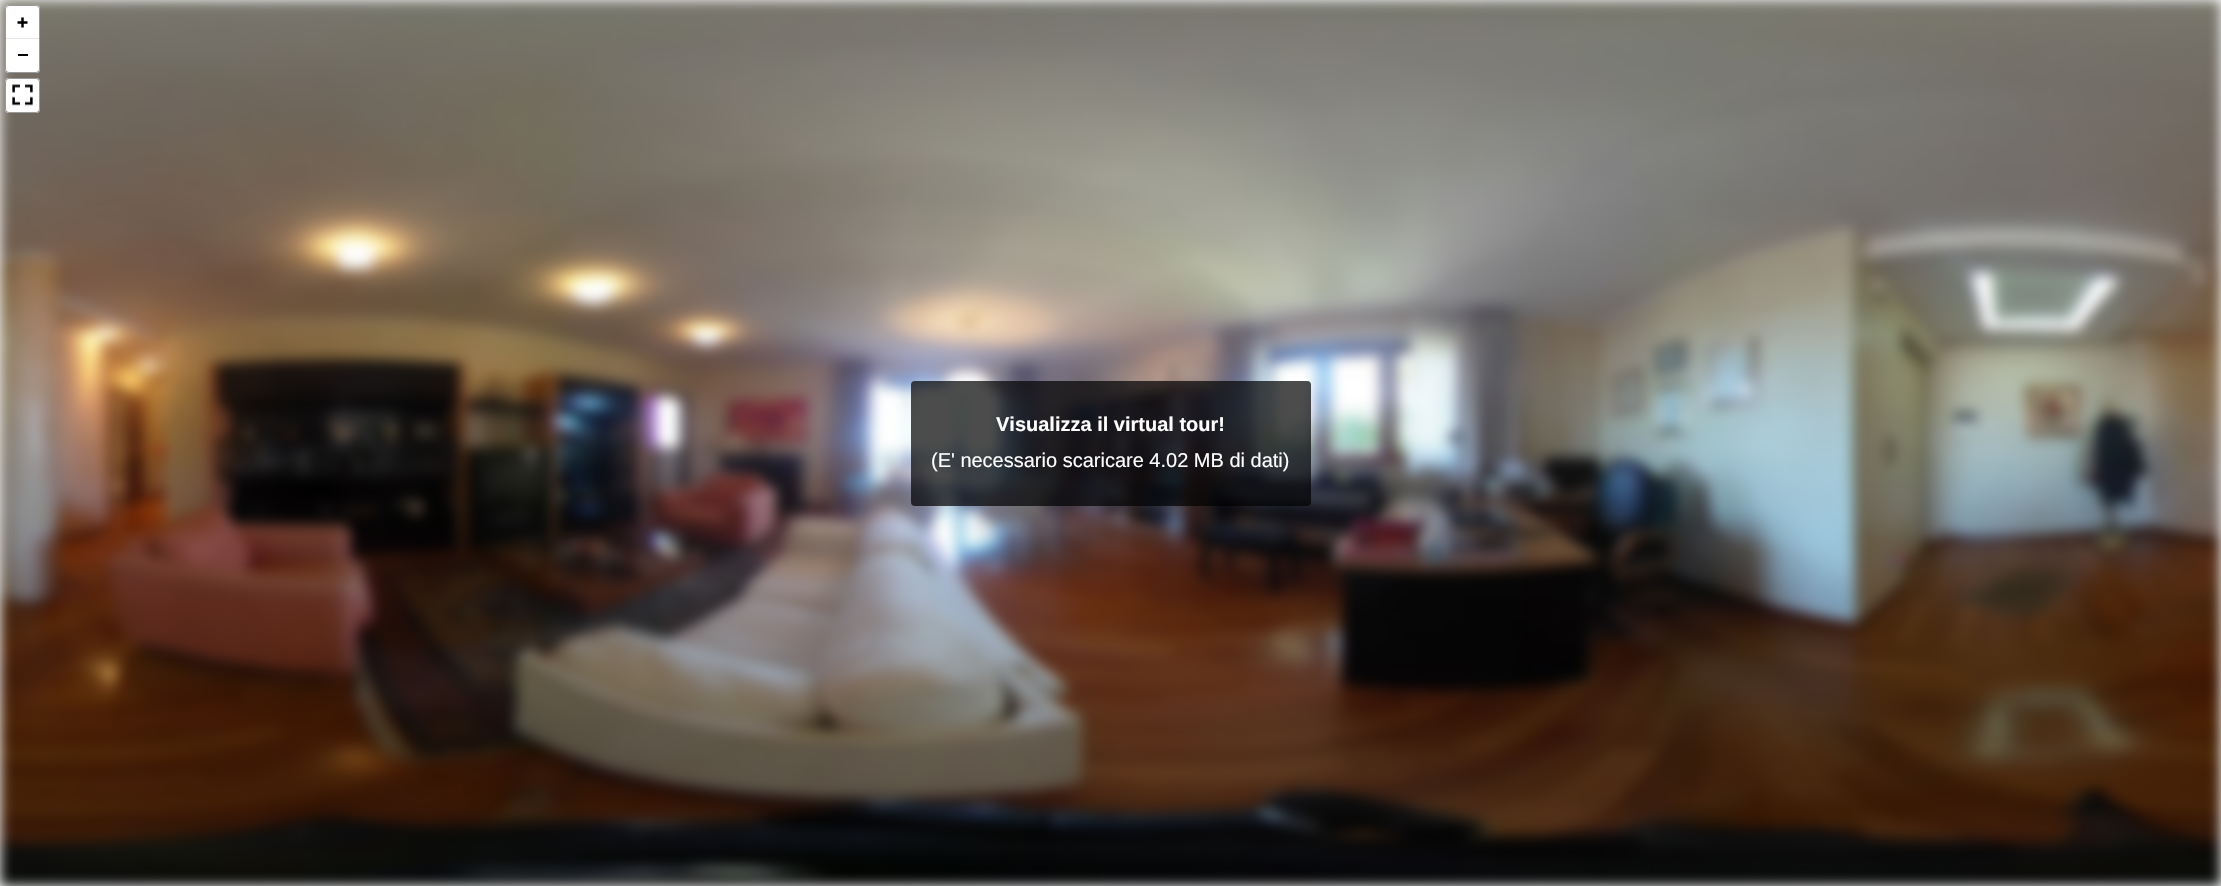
#include "include/core/SkBlurTypes.h"
#include "include/core/SkCanvas.h"
#include "include/core/SkData.h"
#include "include/core/SkFont.h"
#include "include/core/SkFontMgr.h"
#include "include/core/SkImage.h"
#include "include/core/SkMaskFilter.h"
#include "include/core/SkPaint.h"
#include "include/core/SkPathBuilder.h"
#include "include/core/SkTextBlob.h"
#include "include/effects/SkDashPathEffect.h"
#include "include/effects/SkGradientShader.h"
#include "include/utils/SkParsePath.h"

extern sk_sp<SkFontMgr> fontMgr;

void draw(SkCanvas* canvas) {
  SkPaint p;
  p.setAntiAlias(true);
  canvas->clear(SK_ColorWHITE);
  canvas->drawImageRect(SkImages::DeferredFromEncodedData(SkData::MakeFromFileName("images/1.png")), SkRect::MakeLTRB(0, 0, 2221, 886), SkSamplingOptions());
  p.setColor(SK_ColorWHITE);
  canvas->drawRoundRect(SkRect::MakeLTRB(5, 5, 40, 73), 4, 4, p);
  p.setStyle(SkPaint::kStroke_Style);
  p.setStrokeWidth(1);
  p.setColor(SkColorSetARGB(102, 0, 0, 0));
  canvas->drawRoundRect(SkRect::MakeLTRB(5.5f, 5.5f, 39.5f, 72.5f), 3.5f, 3.5f, p);
  canvas->drawImageRect(SkImages::DeferredFromEncodedData(SkData::MakeFromFileName("images/2.png")), SkRect::MakeLTRB(17, 17, 28, 28), SkSamplingOptions());
  p.setStyle(SkPaint::kFill_Style);
  p.setColor(SK_ColorBLACK);
  canvas->drawRect(SkRect::MakeLTRB(18, 54, 28, 56), p);
  p.setColor(SkColorSetRGB(230, 230, 230));
  canvas->drawRect(SkRect::MakeLTRB(6, 38, 39, 39), p);
  p.setColor(SK_ColorWHITE);
  canvas->drawRoundRect(SkRect::MakeLTRB(5, 78, 40, 113), 4, 4, p);
  canvas->drawImageRect(SkImages::DeferredFromEncodedData(SkData::MakeFromFileName("images/3.png")), SkRect::MakeLTRB(12, 84, 33, 106), SkSamplingOptions());
  p.setStyle(SkPaint::kStroke_Style);
  p.setColor(SkColorSetARGB(102, 0, 0, 0));
  canvas->drawRoundRect(SkRect::MakeLTRB(5.5f, 78.5f, 39.5f, 112.5f), 3.5f, 3.5f, p);
  p.setStyle(SkPaint::kFill_Style);
  p.setColor(SkColorSetARGB(179, 0, 0, 0));
  canvas->drawRoundRect(SkRect::MakeLTRB(911, 381, 1311, 506), 4, 4, p);
  SkFont font1(fontMgr->matchFamilyStyle("Liberation Sans", SkFontStyle::Bold()), 20);
  font1.setSubpixel(true);
  p.setColor(SK_ColorWHITE);
  canvas->drawString("Visualizza il virtual tour!", 996, 431, font1, p);
  SkFont font2(fontMgr->matchFamilyStyle("Liberation Sans", SkFontStyle::Normal()), 20);
  font2.setSubpixel(true);
  canvas->drawString("(E' necessario scaricare 4.02 MB di dati)", 931, 467, font2, p);
}
